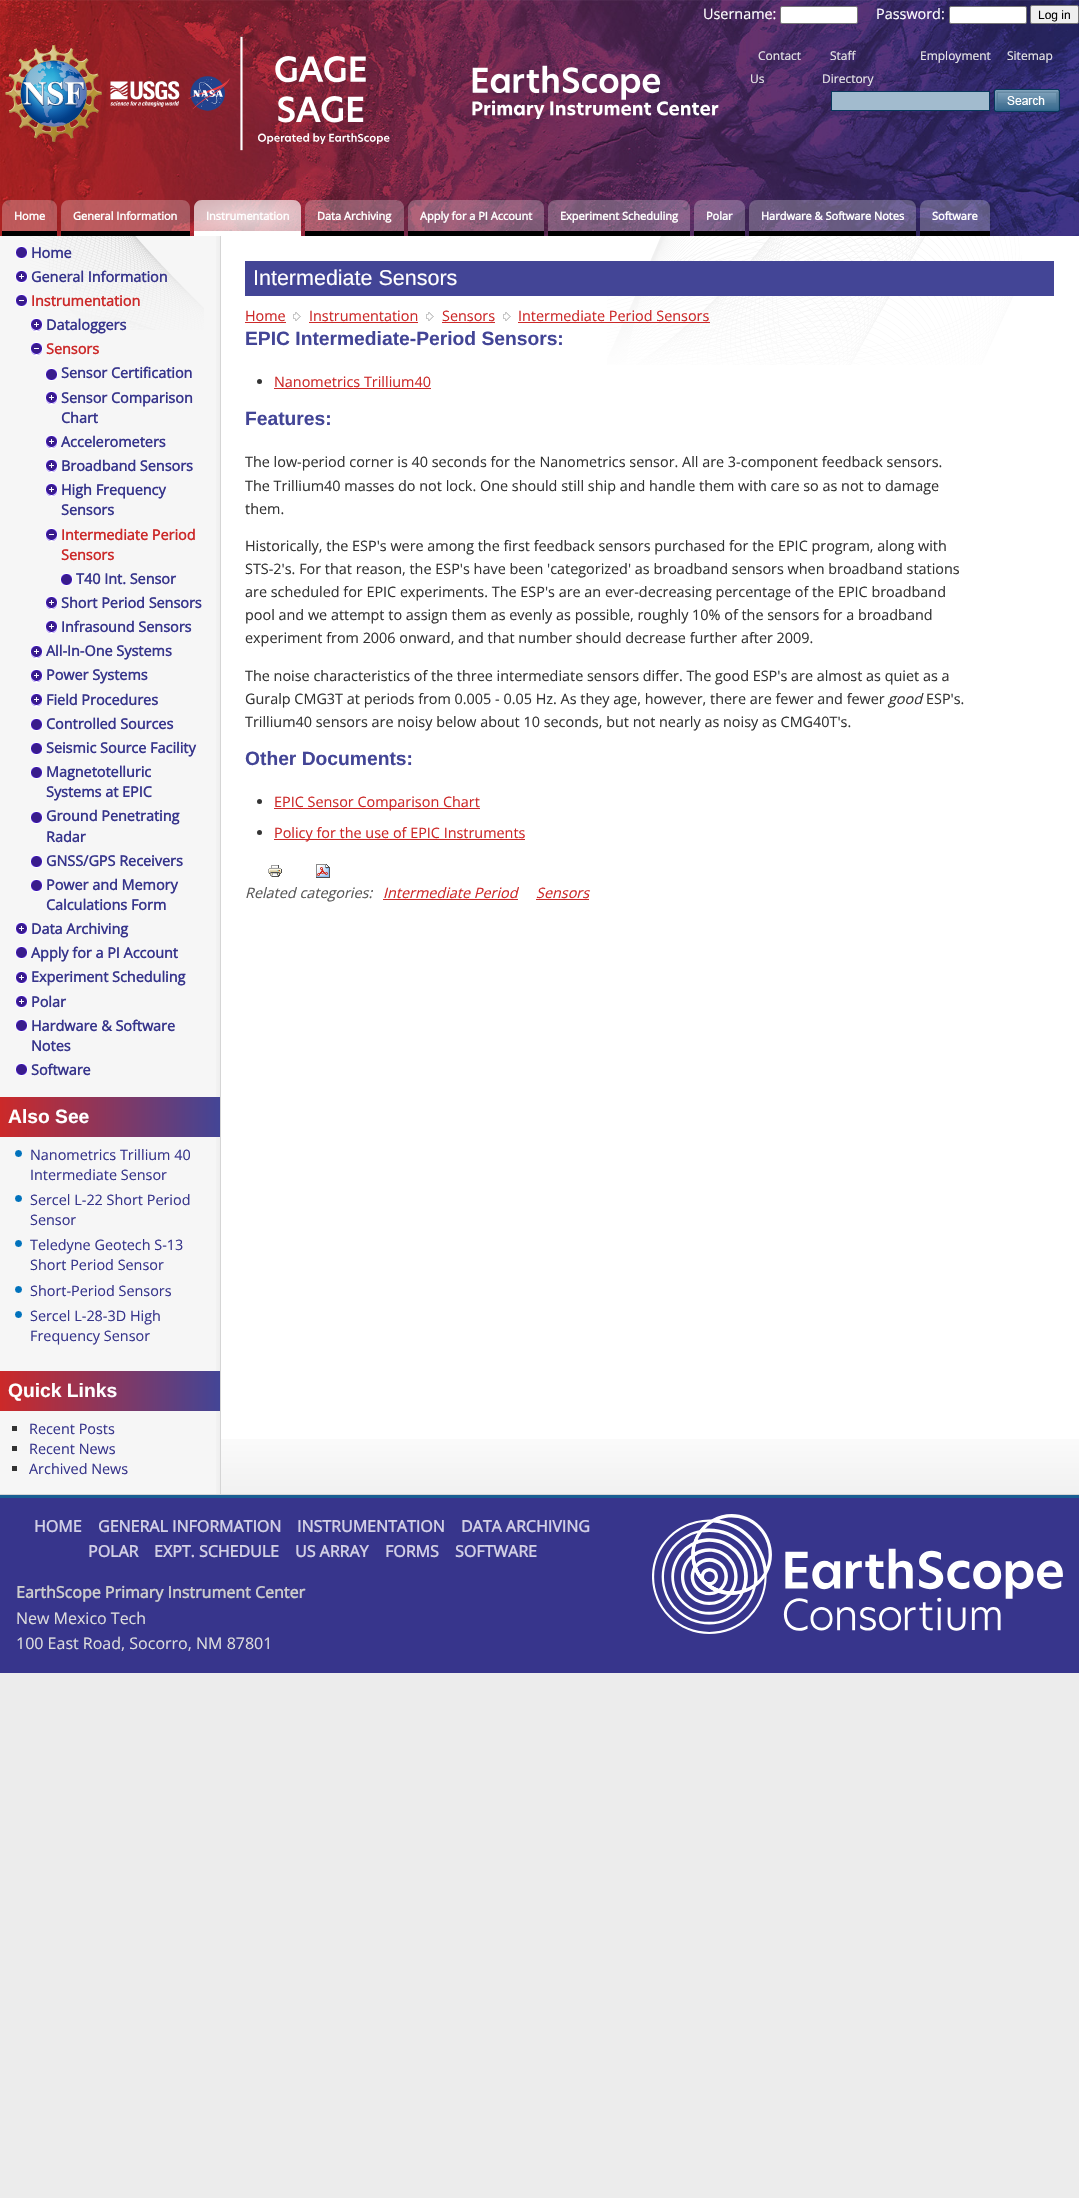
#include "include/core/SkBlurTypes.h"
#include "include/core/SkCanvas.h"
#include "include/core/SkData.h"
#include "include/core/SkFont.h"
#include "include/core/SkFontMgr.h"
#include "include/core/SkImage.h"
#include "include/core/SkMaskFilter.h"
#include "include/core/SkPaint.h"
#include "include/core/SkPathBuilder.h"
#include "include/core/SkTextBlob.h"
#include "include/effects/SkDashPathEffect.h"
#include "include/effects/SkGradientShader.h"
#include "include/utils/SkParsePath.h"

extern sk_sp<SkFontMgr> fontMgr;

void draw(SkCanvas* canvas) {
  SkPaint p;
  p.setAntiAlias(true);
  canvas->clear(SkColorSetRGB(236, 236, 236));
  canvas->drawImageRect(SkImages::DeferredFromEncodedData(SkData::MakeFromFileName("images/1.png")), SkRect::MakeLTRB(0, 0, 1079, 236), SkSamplingOptions());
  p.setColor(SK_ColorWHITE);
  canvas->drawRoundRect(SkRect::MakeLTRB(780.5f, 6.5f, 857.5f, 23.5f), 1.5f, 1.5f, p);
  p.setStyle(SkPaint::kStroke_Style);
  p.setStrokeWidth(1);
  p.setColor(SkColorSetRGB(118, 118, 118));
  canvas->drawRoundRect(SkRect::MakeLTRB(780.5f, 6.5f, 857.5f, 23.5f), 1.5f, 1.5f, p);
  p.setStyle(SkPaint::kFill_Style);
  p.setColor(SK_ColorWHITE);
  canvas->drawRoundRect(SkRect::MakeLTRB(949.5f, 6.5f, 1026.5f, 23.5f), 1.5f, 1.5f, p);
  p.setStyle(SkPaint::kStroke_Style);
  p.setColor(SkColorSetRGB(118, 118, 118));
  canvas->drawRoundRect(SkRect::MakeLTRB(949.5f, 6.5f, 1026.5f, 23.5f), 1.5f, 1.5f, p);
  p.setStyle(SkPaint::kFill_Style);
  p.setColor(SkColorSetRGB(239, 239, 239));
  canvas->drawRoundRect(SkRect::MakeLTRB(1030.5f, 5.5f, 1078.5f, 23.5f), 1.5f, 1.5f, p);
  p.setStyle(SkPaint::kStroke_Style);
  p.setColor(SkColorSetRGB(118, 118, 118));
  canvas->drawRoundRect(SkRect::MakeLTRB(1030.5f, 5.5f, 1078.5f, 23.5f), 1.5f, 1.5f, p);
  canvas->drawImageRect(SkImages::DeferredFromEncodedData(SkData::MakeFromFileName("images/2.png")), SkRect::MakeLTRB(5, 36, 719, 151), SkSamplingOptions());
  p.setStyle(SkPaint::kFill_Style);
  p.setColor(SkColorSetRGB(162, 187, 206));
  canvas->drawRect(SkRect::MakeLTRB(831.5f, 91.5f, 989.5f, 110.5f), p);
  p.setStyle(SkPaint::kStroke_Style);
  p.setColor(SkColorSetRGB(8, 56, 92));
  canvas->drawRect(SkRect::MakeLTRB(831.5f, 91.5f, 989.5f, 110.5f), p);
  canvas->drawImageRect(SkImages::DeferredFromEncodedData(SkData::MakeFromFileName("images/3.png")), SkRect::MakeLTRB(994, 89, 1060, 112), SkSamplingOptions());
  p.setStyle(SkPaint::kFill_Style);
  p.setColor(SkColorSetARGB(64, 255, 255, 255));
  canvas->drawPath(SkPathBuilder().moveTo(10, 200).lineTo(49, 200).cubicTo(53.5f, 200, 57, 203.5f, 57, 208).lineTo(57, 236).lineTo(2, 236).lineTo(2, 208).cubicTo(2, 203.5f, 5.5f, 200, 10, 200).close().detach(), p);
  p.setColor(SK_ColorBLACK);
  canvas->drawRect(SkRect::MakeLTRB(2, 231, 57, 236), p);
  p.setColor(SkColorSetARGB(64, 255, 255, 255));
  canvas->drawPath(SkPathBuilder().moveTo(69, 200).lineTo(182, 200).cubicTo(186.5f, 200, 190, 203.5f, 190, 208).lineTo(190, 236).lineTo(61, 236).lineTo(61, 208).cubicTo(61, 203.5f, 64.5f, 200, 69, 200).close().detach(), p);
  p.setColor(SK_ColorBLACK);
  canvas->drawRect(SkRect::MakeLTRB(61, 231, 190, 236), p);
  p.setColor(SkColorSetARGB(115, 255, 255, 255));
  canvas->drawPath(SkPathBuilder().moveTo(202, 200).lineTo(293, 200).cubicTo(297.5f, 200, 301, 203.5f, 301, 208).lineTo(301, 236).lineTo(194, 236).lineTo(194, 208).cubicTo(194, 203.5f, 197.5f, 200, 202, 200).close().detach(), p);
  {
    const SkColor colors[] = {SkColorSetARGB(153, 255, 255, 255), SkColorSetARGB(89, 255, 255, 255)};
    const float stops[] = {0, 1};
    SkMatrix m = SkMatrix::Translate(248, 216).preScale(76, 22);
    p.setShader(SkGradientShader::MakeRadial({0, 0}, 1, colors, stops, 2, SkTileMode::kClamp, 0, &m));
    p.setAlpha(255);
  }
  canvas->drawPath(SkPathBuilder().moveTo(202, 200).lineTo(293, 200).cubicTo(297.5f, 200, 301, 203.5f, 301, 208).lineTo(301, 231).lineTo(194, 231).lineTo(194, 208).cubicTo(194, 203.5f, 197.5f, 200, 202, 200).close().detach(), p);
  p.setShader(nullptr);
  p.setColor(SK_ColorWHITE);
  canvas->drawRect(SkRect::MakeLTRB(194, 231, 301, 236), p);
  p.setColor(SkColorSetARGB(64, 255, 255, 255));
  canvas->drawPath(SkPathBuilder().moveTo(313, 200).lineTo(396, 200).cubicTo(400.5f, 200, 404, 203.5f, 404, 208).lineTo(404, 236).lineTo(305, 236).lineTo(305, 208).cubicTo(305, 203.5f, 308.5f, 200, 313, 200).close().detach(), p);
  p.setColor(SK_ColorBLACK);
  canvas->drawRect(SkRect::MakeLTRB(305, 231, 404, 236), p);
  p.setColor(SkColorSetARGB(64, 255, 255, 255));
  canvas->drawPath(SkPathBuilder().moveTo(416, 200).lineTo(536, 200).cubicTo(540.5f, 200, 544, 203.5f, 544, 208).lineTo(544, 236).lineTo(408, 236).lineTo(408, 208).cubicTo(408, 203.5f, 411.5f, 200, 416, 200).close().detach(), p);
  p.setColor(SK_ColorBLACK);
  canvas->drawRect(SkRect::MakeLTRB(408, 231, 544, 236), p);
  p.setColor(SkColorSetARGB(64, 255, 255, 255));
  canvas->drawPath(SkPathBuilder().moveTo(556, 200).lineTo(682, 200).cubicTo(686.5f, 200, 690, 203.5f, 690, 208).lineTo(690, 236).lineTo(548, 236).lineTo(548, 208).cubicTo(548, 203.5f, 551.5f, 200, 556, 200).close().detach(), p);
  p.setColor(SK_ColorBLACK);
  canvas->drawRect(SkRect::MakeLTRB(548, 231, 690, 236), p);
  p.setColor(SkColorSetARGB(64, 255, 255, 255));
  canvas->drawPath(SkPathBuilder().moveTo(702, 200).lineTo(737, 200).cubicTo(741.5f, 200, 745, 203.5f, 745, 208).lineTo(745, 236).lineTo(694, 236).lineTo(694, 208).cubicTo(694, 203.5f, 697.5f, 200, 702, 200).close().detach(), p);
  p.setColor(SK_ColorBLACK);
  canvas->drawRect(SkRect::MakeLTRB(694, 231, 745, 236), p);
  p.setColor(SkColorSetARGB(64, 255, 255, 255));
  canvas->drawPath(SkPathBuilder().moveTo(757, 200).lineTo(908, 200).cubicTo(912.5f, 200, 916, 203.5f, 916, 208).lineTo(916, 236).lineTo(749, 236).lineTo(749, 208).cubicTo(749, 203.5f, 752.5f, 200, 757, 200).close().detach(), p);
  p.setColor(SK_ColorBLACK);
  canvas->drawRect(SkRect::MakeLTRB(749, 231, 916, 236), p);
  p.setColor(SkColorSetARGB(64, 255, 255, 255));
  canvas->drawPath(SkPathBuilder().moveTo(928, 200).lineTo(982, 200).cubicTo(986.5f, 200, 990, 203.5f, 990, 208).lineTo(990, 236).lineTo(920, 236).lineTo(920, 208).cubicTo(920, 203.5f, 923.5f, 200, 928, 200).close().detach(), p);
  p.setColor(SK_ColorBLACK);
  canvas->drawRect(SkRect::MakeLTRB(920, 231, 990, 236), p);
  p.setColor(SK_ColorWHITE);
  canvas->drawRect(SkRect::MakeLTRB(221, 236, 1079, 1439), p);
  canvas->drawImageRect(SkImages::DeferredFromEncodedData(SkData::MakeFromFileName("images/4.png")), SkRect::MakeLTRB(221, 1439, 1079, 1494), SkSamplingOptions());
  p.setColor(SkColorSetRGB(213, 213, 213));
  canvas->drawRect(SkRect::MakeLTRB(0, 1494, 1079, 1495), p);
  canvas->drawImageRect(SkImages::DeferredFromEncodedData(SkData::MakeFromFileName("images/5.png")), SkRect::MakeLTRB(0, 236, 221, 1494), SkSamplingOptions());
  canvas->drawImageRect(SkImages::DeferredFromEncodedData(SkData::MakeFromFileName("images/6.png")), SkRect::MakeLTRB(30, 236, 204, 330), SkSamplingOptions());
  canvas->drawImageRect(SkImages::DeferredFromEncodedData(SkData::MakeFromFileName("images/7.png")), SkRect::MakeLTRB(15, 246, 28, 259), SkSamplingOptions());
  canvas->drawImageRect(SkImages::DeferredFromEncodedData(SkData::MakeFromFileName("images/8.png")), SkRect::MakeLTRB(15, 270, 28, 283), SkSamplingOptions());
  canvas->drawImageRect(SkImages::DeferredFromEncodedData(SkData::MakeFromFileName("images/9.png")), SkRect::MakeLTRB(15, 294, 28, 307), SkSamplingOptions());
  canvas->drawImageRect(SkImages::DeferredFromEncodedData(SkData::MakeFromFileName("images/10.png")), SkRect::MakeLTRB(30, 322, 43, 332), SkSamplingOptions());
  canvas->drawImageRect(SkImages::DeferredFromEncodedData(SkData::MakeFromFileName("images/11.png")), SkRect::MakeLTRB(31, 318, 42, 331), SkSamplingOptions());
  canvas->drawImageRect(SkImages::DeferredFromEncodedData(SkData::MakeFromFileName("images/10.png")), SkRect::MakeLTRB(30, 346, 43, 356), SkSamplingOptions());
  canvas->drawImageRect(SkImages::DeferredFromEncodedData(SkData::MakeFromFileName("images/12.png")), SkRect::MakeLTRB(31, 342, 42, 355), SkSamplingOptions());
  canvas->drawImageRect(SkImages::DeferredFromEncodedData(SkData::MakeFromFileName("images/7.png")), SkRect::MakeLTRB(45, 368, 58, 381), SkSamplingOptions());
  canvas->drawImageRect(SkImages::DeferredFromEncodedData(SkData::MakeFromFileName("images/10.png")), SkRect::MakeLTRB(45, 395, 58, 405), SkSamplingOptions());
  canvas->drawImageRect(SkImages::DeferredFromEncodedData(SkData::MakeFromFileName("images/11.png")), SkRect::MakeLTRB(46, 391, 57, 404), SkSamplingOptions());
  canvas->drawImageRect(SkImages::DeferredFromEncodedData(SkData::MakeFromFileName("images/10.png")), SkRect::MakeLTRB(45, 439, 58, 449), SkSamplingOptions());
  canvas->drawImageRect(SkImages::DeferredFromEncodedData(SkData::MakeFromFileName("images/11.png")), SkRect::MakeLTRB(46, 435, 57, 448), SkSamplingOptions());
  canvas->drawImageRect(SkImages::DeferredFromEncodedData(SkData::MakeFromFileName("images/10.png")), SkRect::MakeLTRB(45, 463, 58, 473), SkSamplingOptions());
  canvas->drawImageRect(SkImages::DeferredFromEncodedData(SkData::MakeFromFileName("images/11.png")), SkRect::MakeLTRB(46, 459, 57, 472), SkSamplingOptions());
  canvas->drawImageRect(SkImages::DeferredFromEncodedData(SkData::MakeFromFileName("images/10.png")), SkRect::MakeLTRB(45, 487, 58, 497), SkSamplingOptions());
  canvas->drawImageRect(SkImages::DeferredFromEncodedData(SkData::MakeFromFileName("images/11.png")), SkRect::MakeLTRB(46, 483, 57, 496), SkSamplingOptions());
  canvas->drawImageRect(SkImages::DeferredFromEncodedData(SkData::MakeFromFileName("images/10.png")), SkRect::MakeLTRB(45, 532, 58, 542), SkSamplingOptions());
  canvas->drawImageRect(SkImages::DeferredFromEncodedData(SkData::MakeFromFileName("images/12.png")), SkRect::MakeLTRB(46, 528, 57, 541), SkSamplingOptions());
  canvas->drawImageRect(SkImages::DeferredFromEncodedData(SkData::MakeFromFileName("images/7.png")), SkRect::MakeLTRB(60, 573, 73, 586), SkSamplingOptions());
  canvas->drawImageRect(SkImages::DeferredFromEncodedData(SkData::MakeFromFileName("images/10.png")), SkRect::MakeLTRB(45, 600, 58, 610), SkSamplingOptions());
  canvas->drawImageRect(SkImages::DeferredFromEncodedData(SkData::MakeFromFileName("images/11.png")), SkRect::MakeLTRB(46, 596, 57, 609), SkSamplingOptions());
  canvas->drawImageRect(SkImages::DeferredFromEncodedData(SkData::MakeFromFileName("images/10.png")), SkRect::MakeLTRB(45, 624, 58, 634), SkSamplingOptions());
  canvas->drawImageRect(SkImages::DeferredFromEncodedData(SkData::MakeFromFileName("images/11.png")), SkRect::MakeLTRB(46, 620, 57, 633), SkSamplingOptions());
  canvas->drawImageRect(SkImages::DeferredFromEncodedData(SkData::MakeFromFileName("images/10.png")), SkRect::MakeLTRB(30, 649, 43, 659), SkSamplingOptions());
  canvas->drawImageRect(SkImages::DeferredFromEncodedData(SkData::MakeFromFileName("images/11.png")), SkRect::MakeLTRB(31, 645, 42, 658), SkSamplingOptions());
  canvas->drawImageRect(SkImages::DeferredFromEncodedData(SkData::MakeFromFileName("images/10.png")), SkRect::MakeLTRB(30, 673, 43, 683), SkSamplingOptions());
  canvas->drawImageRect(SkImages::DeferredFromEncodedData(SkData::MakeFromFileName("images/11.png")), SkRect::MakeLTRB(31, 669, 42, 682), SkSamplingOptions());
  canvas->drawImageRect(SkImages::DeferredFromEncodedData(SkData::MakeFromFileName("images/10.png")), SkRect::MakeLTRB(30, 697, 43, 707), SkSamplingOptions());
  canvas->drawImageRect(SkImages::DeferredFromEncodedData(SkData::MakeFromFileName("images/11.png")), SkRect::MakeLTRB(31, 693, 42, 706), SkSamplingOptions());
  canvas->drawImageRect(SkImages::DeferredFromEncodedData(SkData::MakeFromFileName("images/7.png")), SkRect::MakeLTRB(30, 718, 43, 731), SkSamplingOptions());
  canvas->drawImageRect(SkImages::DeferredFromEncodedData(SkData::MakeFromFileName("images/7.png")), SkRect::MakeLTRB(30, 742, 43, 755), SkSamplingOptions());
  canvas->drawImageRect(SkImages::DeferredFromEncodedData(SkData::MakeFromFileName("images/7.png")), SkRect::MakeLTRB(30, 766, 43, 779), SkSamplingOptions());
  canvas->drawImageRect(SkImages::DeferredFromEncodedData(SkData::MakeFromFileName("images/7.png")), SkRect::MakeLTRB(30, 811, 43, 824), SkSamplingOptions());
  canvas->drawImageRect(SkImages::DeferredFromEncodedData(SkData::MakeFromFileName("images/7.png")), SkRect::MakeLTRB(30, 855, 43, 868), SkSamplingOptions());
  canvas->drawImageRect(SkImages::DeferredFromEncodedData(SkData::MakeFromFileName("images/7.png")), SkRect::MakeLTRB(30, 879, 43, 892), SkSamplingOptions());
  canvas->drawImageRect(SkImages::DeferredFromEncodedData(SkData::MakeFromFileName("images/8.png")), SkRect::MakeLTRB(15, 922, 28, 935), SkSamplingOptions());
  canvas->drawImageRect(SkImages::DeferredFromEncodedData(SkData::MakeFromFileName("images/7.png")), SkRect::MakeLTRB(15, 946, 28, 959), SkSamplingOptions());
  canvas->drawImageRect(SkImages::DeferredFromEncodedData(SkData::MakeFromFileName("images/8.png")), SkRect::MakeLTRB(15, 971, 28, 984), SkSamplingOptions());
  canvas->drawImageRect(SkImages::DeferredFromEncodedData(SkData::MakeFromFileName("images/8.png")), SkRect::MakeLTRB(15, 995, 28, 1008), SkSamplingOptions());
  canvas->drawImageRect(SkImages::DeferredFromEncodedData(SkData::MakeFromFileName("images/7.png")), SkRect::MakeLTRB(15, 1019, 28, 1032), SkSamplingOptions());
  canvas->drawImageRect(SkImages::DeferredFromEncodedData(SkData::MakeFromFileName("images/7.png")), SkRect::MakeLTRB(15, 1063, 28, 1076), SkSamplingOptions());
  {
    const SkColor colors[] = {SkColorSetRGB(204, 41, 41), SkColorSetRGB(67, 69, 150)};
    const float stops[] = {0, 1};
    const SkPoint ends[] = {{0, 1117}, {220, 1117}};
    p.setShader(SkGradientShader::MakeLinear(ends, colors, stops, 2, SkTileMode::kClamp));
    p.setAlpha(255);
  }
  canvas->drawRect(SkRect::MakeLTRB(0, 1097, 220, 1137), p);
  canvas->drawImageRect(SkImages::DeferredFromEncodedData(SkData::MakeFromFileName("images/13.png")), SkRect::MakeLTRB(15, 1150, 22, 1157), SkSamplingOptions());
  canvas->drawImageRect(SkImages::DeferredFromEncodedData(SkData::MakeFromFileName("images/13.png")), SkRect::MakeLTRB(15, 1195, 22, 1202), SkSamplingOptions());
  canvas->drawImageRect(SkImages::DeferredFromEncodedData(SkData::MakeFromFileName("images/13.png")), SkRect::MakeLTRB(15, 1240, 22, 1247), SkSamplingOptions());
  canvas->drawImageRect(SkImages::DeferredFromEncodedData(SkData::MakeFromFileName("images/13.png")), SkRect::MakeLTRB(15, 1286, 22, 1293), SkSamplingOptions());
  canvas->drawImageRect(SkImages::DeferredFromEncodedData(SkData::MakeFromFileName("images/13.png")), SkRect::MakeLTRB(15, 1311, 22, 1318), SkSamplingOptions());
  {
    const SkColor colors[] = {SkColorSetRGB(204, 41, 41), SkColorSetRGB(67, 69, 150)};
    const float stops[] = {0, 1};
    const SkPoint ends[] = {{0, 1391}, {220, 1391}};
    p.setShader(SkGradientShader::MakeLinear(ends, colors, stops, 2, SkTileMode::kClamp));
    p.setAlpha(255);
  }
  canvas->drawRect(SkRect::MakeLTRB(0, 1371, 220, 1411), p);
  p.setShader(nullptr);
  p.setColor(SkColorSetRGB(52, 52, 52));
  canvas->drawRect(SkRect::MakeLTRB(12, 1426, 17, 1431), p);
  canvas->drawRect(SkRect::MakeLTRB(12, 1446, 17, 1451), p);
  canvas->drawRect(SkRect::MakeLTRB(12, 1466, 17, 1471), p);
  canvas->drawImageRect(SkImages::DeferredFromEncodedData(SkData::MakeFromFileName("images/14.png")), SkRect::MakeLTRB(607, 236, 1022, 365), SkSamplingOptions());
  p.setColor(SkColorSetRGB(67, 69, 150));
  canvas->drawRect(SkRect::MakeLTRB(245, 261, 1054, 296), p);
  p.setColor(SkColorSetRGB(204, 41, 41));
  canvas->drawRect(SkRect::MakeLTRB(245, 322, 286, 323), p);
  canvas->drawImageRect(SkImages::DeferredFromEncodedData(SkData::MakeFromFileName("images/15.png")), SkRect::MakeLTRB(293, 312, 301, 321), SkSamplingOptions());
  canvas->drawRect(SkRect::MakeLTRB(309, 322, 418, 323), p);
  canvas->drawImageRect(SkImages::DeferredFromEncodedData(SkData::MakeFromFileName("images/15.png")), SkRect::MakeLTRB(426, 312, 434, 321), SkSamplingOptions());
  canvas->drawRect(SkRect::MakeLTRB(442, 322, 495, 323), p);
  canvas->drawImageRect(SkImages::DeferredFromEncodedData(SkData::MakeFromFileName("images/15.png")), SkRect::MakeLTRB(503, 312, 511, 321), SkSamplingOptions());
  canvas->drawRect(SkRect::MakeLTRB(518, 322, 710, 323), p);
  p.setColor(SkColorSetRGB(52, 52, 52));
  canvas->drawCircle(259.5f, 381.5f, 2.5f, p);
  p.setColor(SkColorSetRGB(204, 41, 41));
  canvas->drawRect(SkRect::MakeLTRB(274, 388, 431, 389), p);
  p.setColor(SkColorSetRGB(52, 52, 52));
  canvas->drawCircle(259.5f, 801.5f, 2.5f, p);
  p.setColor(SkColorSetRGB(204, 41, 41));
  canvas->drawRect(SkRect::MakeLTRB(274, 808, 480, 809), p);
  p.setColor(SkColorSetRGB(52, 52, 52));
  canvas->drawCircle(259.5f, 832.5f, 2.5f, p);
  p.setColor(SkColorSetRGB(204, 41, 41));
  canvas->drawRect(SkRect::MakeLTRB(274, 839, 525, 840), p);
  canvas->drawImageRect(SkImages::DeferredFromEncodedData(SkData::MakeFromFileName("images/16.png")), SkRect::MakeLTRB(268, 865, 282, 877), SkSamplingOptions());
  canvas->drawImageRect(SkImages::DeferredFromEncodedData(SkData::MakeFromFileName("images/17.png")), SkRect::MakeLTRB(316, 864, 330, 878), SkSamplingOptions());
  canvas->drawRect(SkRect::MakeLTRB(383, 899, 518, 900), p);
  canvas->drawRect(SkRect::MakeLTRB(536, 899, 589, 900), p);
  p.setColor(SkColorSetRGB(55, 53, 140));
  canvas->drawRect(SkRect::MakeLTRB(0, 1498, 1079, 1673), p);
  p.setColor(SkColorSetRGB(25, 95, 147));
  canvas->drawRect(SkRect::MakeLTRB(0, 1495, 1079, 1498), p);
  canvas->drawImageRect(SkImages::DeferredFromEncodedData(SkData::MakeFromFileName("images/18.png")), SkRect::MakeLTRB(652, 1514, 1063, 1634), SkSamplingOptions());
  SkFont font1(fontMgr->matchFamilyStyle("Open Sans", SkFontStyle::Normal()), 14.4f);
  font1.setSubpixel(true);
  p.setColor(SK_ColorWHITE);
  canvas->drawString("Username:", 703, 19, font1, p);
  canvas->drawString("Password:", 876, 19, font1, p);
  SkFont font2(fontMgr->matchFamilyStyle("Liberation Sans", SkFontStyle::Normal()), 12);
  font2.setSubpixel(true);
  p.setColor(SK_ColorBLACK);
  canvas->drawString("Log in", 1038, 19, font2, p);
  SkFont font3(fontMgr->matchFamilyStyle("Open Sans", SkFontStyle::Normal()), 12);
  font3.setSubpixel(true);
  p.setColor(SkColorSetRGB(232, 232, 232));
  canvas->drawString("Contact", 758, 60, font3, p);
  canvas->drawString("Us", 750, 83, font3, p);
  canvas->drawString("Staff", 830, 60, font3, p);
  canvas->drawString("Directory", 822, 83, font3, p);
  canvas->drawString("Employment", 920, 60, font3, p);
  canvas->drawString("Sitemap", 1007, 60, font3, p);
  SkFont font4(fontMgr->matchFamilyStyle("Open Sans", SkFontStyle::Bold()), 11);
  font4.setSubpixel(true);
  p.setColor(SK_ColorWHITE);
  canvas->drawString("Home", 14, 220, font4, p);
  canvas->drawString("General Information", 73, 220, font4, p);
  canvas->drawString("Instrumentation", 206, 220, font4, p);
  canvas->drawString("Data Archiving", 317, 220, font4, p);
  canvas->drawString("Apply for a PI Account", 420, 220, font4, p);
  canvas->drawString("Experiment Scheduling", 560, 220, font4, p);
  canvas->drawString("Polar", 706, 220, font4, p);
  canvas->drawString("Hardware & Software Notes", 761, 220, font4, p);
  canvas->drawString("Software", 932, 220, font4, p);
  SkFont font5(fontMgr->matchFamilyStyle("Open Sans", SkFontStyle::Bold()), 14.4f);
  font5.setSubpixel(true);
  p.setColor(SkColorSetRGB(55, 53, 140));
  canvas->drawString("Home", 31, 258, font5, p);
  canvas->drawString("General Information", 31, 282, font5, p);
  p.setColor(SkColorSetRGB(204, 41, 41));
  canvas->drawString("Instrumentation", 31, 306, font5, p);
  p.setColor(SkColorSetRGB(55, 53, 140));
  canvas->drawString("Dataloggers", 46, 330, font5, p);
  p.setColor(SkColorSetRGB(204, 41, 41));
  canvas->drawString("Sensors", 46, 354, font5, p);
  p.setColor(SkColorSetRGB(55, 53, 140));
  canvas->drawString("Sensor Certification", 61, 378, font5, p);
  canvas->drawString("Sensor Comparison", 61, 403, font5, p);
  canvas->drawString("Chart", 61, 423, font5, p);
  canvas->drawString("Accelerometers", 61, 447, font5, p);
  canvas->drawString("Broadband Sensors", 61, 471, font5, p);
  canvas->drawString("High Frequency", 61, 495, font5, p);
  canvas->drawString("Sensors", 61, 515, font5, p);
  p.setColor(SkColorSetRGB(204, 41, 41));
  canvas->drawString("Intermediate Period", 61, 540, font5, p);
  canvas->drawString("Sensors", 61, 560, font5, p);
  p.setColor(SkColorSetRGB(55, 53, 140));
  canvas->drawString("T40 Int. Sensor", 76, 584, font5, p);
  canvas->drawString("Short Period Sensors", 61, 608, font5, p);
  canvas->drawString("Infrasound Sensors", 61, 632, font5, p);
  canvas->drawString("All-In-One Systems", 46, 656, font5, p);
  canvas->drawString("Power Systems", 46, 680, font5, p);
  canvas->drawString("Field Procedures", 46, 705, font5, p);
  canvas->drawString("Controlled Sources", 46, 729, font5, p);
  canvas->drawString("Seismic Source Facility", 46, 753, font5, p);
  canvas->drawString("Magnetotelluric", 46, 777, font5, p);
  canvas->drawString("Systems at EPIC", 46, 797, font5, p);
  canvas->drawString("Ground Penetrating", 46, 821, font5, p);
  canvas->drawString("Radar", 46, 842, font5, p);
  canvas->drawString("GNSS/GPS Receivers", 46, 866, font5, p);
  canvas->drawString("Power and Memory", 46, 890, font5, p);
  canvas->drawString("Calculations Form", 46, 910, font5, p);
  canvas->drawString("Data Archiving", 31, 934, font5, p);
  canvas->drawString("Apply for a PI Account", 31, 958, font5, p);
  canvas->drawString("Experiment Scheduling", 31, 982, font5, p);
  canvas->drawString("Polar", 31, 1007, font5, p);
  canvas->drawString("Hardware & Software", 31, 1031, font5, p);
  canvas->drawString("Notes", 31, 1051, font5, p);
  canvas->drawString("Software", 31, 1075, font5, p);
  SkFont font6(fontMgr->matchFamilyStyle("Liberation Sans", SkFontStyle::Bold()), 19.25f);
  font6.setSubpixel(true);
  p.setColor(SK_ColorWHITE);
  canvas->drawString("Also See", 8, 1123, font6, p);
  p.setColor(SkColorSetRGB(55, 53, 140));
  canvas->drawString("Nanometrics Trillium 40", 30, 1160, font1, p);
  canvas->drawString("Intermediate Sensor", 30, 1180, font1, p);
  canvas->drawString("Sercel L-22 Short Period", 30, 1205, font1, p);
  canvas->drawString("Sensor", 30, 1225, font1, p);
  canvas->drawString("Teledyne Geotech S-13", 30, 1250, font1, p);
  canvas->drawString("Short Period Sensor", 30, 1270, font1, p);
  canvas->drawString("Short-Period Sensors", 30, 1296, font1, p);
  canvas->drawString("Sercel L-28-3D High", 30, 1321, font1, p);
  canvas->drawString("Frequency Sensor", 30, 1341, font1, p);
  p.setColor(SK_ColorWHITE);
  canvas->drawString("Quick Links", 8, 1397, font6, p);
  p.setColor(SkColorSetRGB(55, 53, 140));
  canvas->drawString("Recent Posts", 29, 1434, font1, p);
  canvas->drawString("Recent News", 29, 1454, font1, p);
  canvas->drawString("Archived News", 29, 1474, font1, p);
  SkFont font7(fontMgr->matchFamilyStyle("Liberation Sans", SkFontStyle::Normal()), 21.5f);
  font7.setSubpixel(true);
  p.setColor(SK_ColorWHITE);
  canvas->drawString("Intermediate Sensors", 253, 285, font7, p);
  p.setColor(SkColorSetRGB(204, 41, 41));
  canvas->drawString("Home", 245, 321, font1, p);
  canvas->drawString("Instrumentation", 309, 321, font1, p);
  canvas->drawString("Sensors", 442, 321, font1, p);
  canvas->drawString("Intermediate Period Sensors", 518, 321, font1, p);
  p.setColor(SkColorSetRGB(67, 69, 150));
  canvas->drawString("EPIC Intermediate-Period Sensors:", 245, 345, font6, p);
  p.setColor(SkColorSetRGB(204, 41, 41));
  canvas->drawString("Nanometrics Trillium40", 274, 387, font1, p);
  p.setColor(SkColorSetRGB(67, 69, 150));
  canvas->drawString("Features:", 245, 425, font6, p);
  p.setColor(SkColorSetRGB(52, 52, 52));
  canvas->drawString("The low-period corner is 40 seconds for the Nanometrics sensor. All are 3-component feedback sensors.", 245, 467, font1, p);
  canvas->drawString("The Trillium40 masses do not lock. One should still ship and handle them with care so as not to damage", 245, 491, font1, p);
  canvas->drawString("them.", 245, 514, font1, p);
  canvas->drawString("Historically, the ESP's were among the first feedback sensors purchased for the EPIC program, along with", 245, 551, font1, p);
  canvas->drawString("STS-2's. For that reason, the ESP's have been 'categorized' as broadband sensors when broadband stations", 245, 574, font1, p);
  canvas->drawString("are scheduled for EPIC experiments. The ESP's are an ever-decreasing percentage of the EPIC broadband", 245, 597, font1, p);
  canvas->drawString("pool and we attempt to assign them as evenly as possible, roughly 10% of the sensors for a broadband", 245, 620, font1, p);
  canvas->drawString("experiment from 2006 onward, and that number should decrease further after 2009.", 245, 643, font1, p);
  canvas->drawString("The noise characteristics of the three intermediate sensors differ. The good ESP's are almost as quiet as a", 245, 681, font1, p);
  canvas->drawString("Guralp CMG3T at periods from 0.005 - 0.05 Hz. As they age, however, there are fewer and fewer", 245, 704, font1, p);
  SkFont font8(fontMgr->matchFamilyStyle("Open Sans", SkFontStyle::Italic()), 14.4f);
  font8.setSubpixel(true);
  canvas->drawString("good", 888, 704, font8, p);
  canvas->drawString("ESP's.", 926, 704, font1, p);
  canvas->drawString("Trillium40 sensors are noisy below about 10 seconds, but not nearly as noisy as CMG40T's.", 245, 727, font1, p);
  p.setColor(SkColorSetRGB(67, 69, 150));
  canvas->drawString("Other Documents:", 245, 765, font6, p);
  p.setColor(SkColorSetRGB(204, 41, 41));
  canvas->drawString("EPIC Sensor Comparison Chart", 274, 807, font1, p);
  canvas->drawString("Policy for the use of EPIC Instruments", 274, 838, font1, p);
  p.setColor(SkColorSetRGB(88, 88, 88));
  canvas->drawString("Related categories:", 245, 898, font8, p);
  p.setColor(SkColorSetRGB(204, 41, 41));
  canvas->drawString("Intermediate Period", 383, 898, font8, p);
  canvas->drawString("Sensors", 536, 898, font8, p);
  SkFont font9(fontMgr->matchFamilyStyle("Open Sans", SkFontStyle::Bold()), 16);
  font9.setSubpixel(true);
  p.setColor(SkColorSetRGB(209, 206, 229));
  canvas->drawString("HOME", 34, 1532, font9, p);
  canvas->drawString("GENERAL INFORMATION", 98, 1532, font9, p);
  canvas->drawString("INSTRUMENTATION", 297, 1532, font9, p);
  canvas->drawString("DATA ARCHIVING", 461, 1532, font9, p);
  canvas->drawString("POLAR", 88, 1557, font9, p);
  canvas->drawString("EXPT. SCHEDULE", 154, 1557, font9, p);
  canvas->drawString("US ARRAY", 295, 1557, font9, p);
  canvas->drawString("FORMS", 385, 1557, font9, p);
  canvas->drawString("SOFTWARE", 455, 1557, font9, p);
  p.setColor(SkColorSetRGB(204, 204, 204));
  canvas->drawString("EarthScope Primary Instrument Center", 16, 1598, font9, p);
  SkFont font10(fontMgr->matchFamilyStyle("Open Sans", SkFontStyle::Normal()), 16);
  font10.setSubpixel(true);
  p.setColor(SkColorSetRGB(221, 221, 221));
  canvas->drawString("New Mexico Tech", 16, 1624, font10, p);
  canvas->drawString("100 East Road, Socorro, NM 87801", 16, 1649, font10, p);
}
